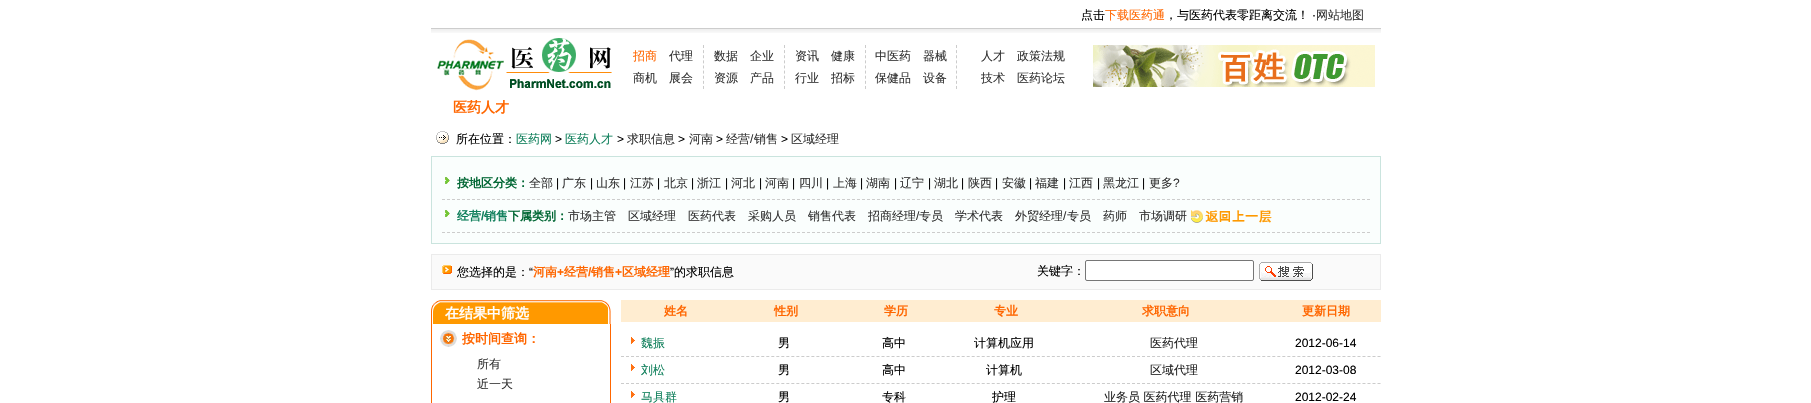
#include "include/core/SkBlurTypes.h"
#include "include/core/SkCanvas.h"
#include "include/core/SkData.h"
#include "include/core/SkFont.h"
#include "include/core/SkFontMgr.h"
#include "include/core/SkImage.h"
#include "include/core/SkMaskFilter.h"
#include "include/core/SkPaint.h"
#include "include/core/SkPathBuilder.h"
#include "include/core/SkTextBlob.h"
#include "include/effects/SkDashPathEffect.h"
#include "include/effects/SkGradientShader.h"
#include "include/utils/SkParsePath.h"

extern sk_sp<SkFontMgr> fontMgr;

void draw(SkCanvas* canvas) {
  SkPaint p;
  p.setAntiAlias(true);
  canvas->clear(SK_ColorWHITE);
  canvas->drawImageRect(SkImages::DeferredFromEncodedData(SkData::MakeFromFileName("images/1.png")), SkRect::MakeLTRB(431, 28, 1381, 33), SkSamplingOptions());
  canvas->drawImageRect(SkImages::DeferredFromEncodedData(SkData::MakeFromFileName("images/2.png")), SkRect::MakeLTRB(437, 38, 612, 91), SkSamplingOptions());
  p.setStyle(SkPaint::kStroke_Style);
  p.setStrokeWidth(1);
  p.setColor(SkColorSetRGB(204, 204, 204));
  p.setPathEffect(SkDashPathEffect::Make({{3, 2.12f}}, 0));
  canvas->drawPath(SkPathBuilder().moveTo(703.5f, 45).lineTo(703.5f, 89).detach(), p);
  p.setPathEffect(nullptr);
  p.setPathEffect(SkDashPathEffect::Make({{3, 2.12f}}, 0));
  canvas->drawPath(SkPathBuilder().moveTo(784.5f, 45).lineTo(784.5f, 89).detach(), p);
  p.setPathEffect(nullptr);
  p.setPathEffect(SkDashPathEffect::Make({{3, 2.12f}}, 0));
  canvas->drawPath(SkPathBuilder().moveTo(865.5f, 45).lineTo(865.5f, 89).detach(), p);
  p.setPathEffect(nullptr);
  p.setPathEffect(SkDashPathEffect::Make({{3, 2.12f}}, 0));
  canvas->drawPath(SkPathBuilder().moveTo(956.5f, 45).lineTo(956.5f, 89).detach(), p);
  p.setPathEffect(nullptr);
  canvas->drawImageRect(SkImages::DeferredFromEncodedData(SkData::MakeFromFileName("images/3.png")), SkRect::MakeLTRB(1093, 45, 1375, 87), SkSamplingOptions());
  canvas->drawImageRect(SkImages::DeferredFromEncodedData(SkData::MakeFromFileName("images/4.png")), SkRect::MakeLTRB(436, 131, 449, 144), SkSamplingOptions());
  p.setStyle(SkPaint::kFill_Style);
  p.setColor(SkColorSetRGB(250, 254, 253));
  canvas->drawRect(SkRect::MakeLTRB(431.5f, 156.5f, 1380.5f, 243.5f), p);
  p.setStyle(SkPaint::kStroke_Style);
  p.setColor(SkColorSetRGB(202, 228, 222));
  canvas->drawRect(SkRect::MakeLTRB(431.5f, 156.5f, 1380.5f, 243.5f), p);
  canvas->drawImageRect(SkImages::DeferredFromEncodedData(SkData::MakeFromFileName("images/5.png")), SkRect::MakeLTRB(445, 177, 450, 184), SkSamplingOptions());
  p.setColor(SkColorSetRGB(204, 204, 204));
  p.setPathEffect(SkDashPathEffect::Make({{3, 2}}, 0));
  canvas->drawPath(SkPathBuilder().moveTo(442, 199.5f).lineTo(1370, 199.5f).detach(), p);
  p.setPathEffect(nullptr);
  canvas->drawImageRect(SkImages::DeferredFromEncodedData(SkData::MakeFromFileName("images/5.png")), SkRect::MakeLTRB(445, 210, 450, 217), SkSamplingOptions());
  p.setPathEffect(SkDashPathEffect::Make({{3, 2}}, 0));
  canvas->drawPath(SkPathBuilder().moveTo(442, 232.5f).lineTo(1370, 232.5f).detach(), p);
  p.setPathEffect(nullptr);
  canvas->drawImageRect(SkImages::DeferredFromEncodedData(SkData::MakeFromFileName("images/6.png")), SkRect::MakeLTRB(1191, 210, 1272, 223), SkSamplingOptions());
  p.setStyle(SkPaint::kFill_Style);
  p.setColor(SkColorSetRGB(250, 250, 250));
  canvas->drawRect(SkRect::MakeLTRB(431.5f, 254.5f, 1380.5f, 289.5f), p);
  p.setStyle(SkPaint::kStroke_Style);
  p.setColor(SkColorSetRGB(235, 235, 235));
  canvas->drawRect(SkRect::MakeLTRB(431.5f, 254.5f, 1380.5f, 289.5f), p);
  canvas->drawImageRect(SkImages::DeferredFromEncodedData(SkData::MakeFromFileName("images/7.png")), SkRect::MakeLTRB(442, 265, 452, 274), SkSamplingOptions());
  p.setStyle(SkPaint::kFill_Style);
  p.setColor(SK_ColorWHITE);
  canvas->drawRoundRect(SkRect::MakeLTRB(1085.5f, 260.5f, 1253.5f, 280.5f), 1.5f, 1.5f, p);
  p.setStyle(SkPaint::kStroke_Style);
  p.setColor(SkColorSetRGB(118, 118, 118));
  canvas->drawRoundRect(SkRect::MakeLTRB(1085.5f, 260.5f, 1253.5f, 280.5f), 1.5f, 1.5f, p);
  canvas->drawImageRect(SkImages::DeferredFromEncodedData(SkData::MakeFromFileName("images/8.png")), SkRect::MakeLTRB(1259, 262, 1313, 281), SkSamplingOptions());
  canvas->drawImageRect(SkImages::DeferredFromEncodedData(SkData::MakeFromFileName("images/9.png")), SkRect::MakeLTRB(431, 300, 440, 324), SkSamplingOptions());
  canvas->drawImageRect(SkImages::DeferredFromEncodedData(SkData::MakeFromFileName("images/10.png")), SkRect::MakeLTRB(440, 300, 601, 324), SkSamplingOptions());
  canvas->drawImageRect(SkImages::DeferredFromEncodedData(SkData::MakeFromFileName("images/11.png")), SkRect::MakeLTRB(601, 300, 611, 324), SkSamplingOptions());
  p.setStyle(SkPaint::kFill_Style);
  p.setColor(SkColorSetRGB(255, 102, 0));
  canvas->drawRect(SkRect::MakeLTRB(610, 324, 611, 403), p);
  canvas->drawRect(SkRect::MakeLTRB(431, 324, 432, 403), p);
  canvas->drawImageRect(SkImages::DeferredFromEncodedData(SkData::MakeFromFileName("images/12.png")), SkRect::MakeLTRB(440, 330, 457, 347), SkSamplingOptions());
  p.setColor(SkColorSetRGB(255, 237, 209));
  canvas->drawRect(SkRect::MakeLTRB(621, 300, 1381, 322), p);
  canvas->drawImageRect(SkImages::DeferredFromEncodedData(SkData::MakeFromFileName("images/13.png")), SkRect::MakeLTRB(631, 337, 635, 344), SkSamplingOptions());
  p.setStyle(SkPaint::kStroke_Style);
  p.setColor(SkColorSetRGB(204, 204, 204));
  p.setPathEffect(SkDashPathEffect::Make({{3, 2.01f}}, 0));
  canvas->drawPath(SkPathBuilder().moveTo(621, 356.5f).lineTo(1381, 356.5f).detach(), p);
  p.setPathEffect(nullptr);
  canvas->drawImageRect(SkImages::DeferredFromEncodedData(SkData::MakeFromFileName("images/13.png")), SkRect::MakeLTRB(631, 364, 635, 371), SkSamplingOptions());
  p.setPathEffect(SkDashPathEffect::Make({{3, 2.01f}}, 0));
  canvas->drawPath(SkPathBuilder().moveTo(621, 383.5f).lineTo(1381, 383.5f).detach(), p);
  p.setPathEffect(nullptr);
  canvas->drawImageRect(SkImages::DeferredFromEncodedData(SkData::MakeFromFileName("images/13.png")), SkRect::MakeLTRB(631, 391, 635, 398), SkSamplingOptions());
  SkFont font1(fontMgr->matchFamilyStyle("WenQuanYi Zen Hei", SkFontStyle(500, SkFontStyle::kNormal_Width, SkFontStyle::kUpright_Slant)), 12);
  font1.setSubpixel(true);
  p.setStyle(SkPaint::kFill_Style);
  p.setColor(SK_ColorBLACK);
  canvas->drawString("点击", 1081, 19, font1, p);
  p.setColor(SkColorSetRGB(255, 102, 0));
  canvas->drawString("下载医药通", 1105, 19, font1, p);
  p.setColor(SK_ColorBLACK);
  canvas->drawString("，与医药代表零距离交流！", 1165, 19, font1, p);
  SkFont font2(fontMgr->matchFamilyStyle("Liberation Sans", SkFontStyle::Normal()), 12);
  font2.setSubpixel(true);
  canvas->drawString("·", 1312, 19, font2, p);
  p.setColor(SkColorSetRGB(51, 51, 51));
  canvas->drawString("网站地图", 1316, 19, font1, p);
  p.setColor(SkColorSetRGB(255, 102, 0));
  canvas->drawString("招商", 633, 60, font1, p);
  p.setColor(SkColorSetRGB(51, 51, 51));
  canvas->drawString("代理", 669, 60, font1, p);
  canvas->drawString("商机", 633, 82, font1, p);
  canvas->drawString("展会", 669, 82, font1, p);
  canvas->drawString("数据", 714, 60, font1, p);
  canvas->drawString("企业", 750, 60, font1, p);
  canvas->drawString("资源", 714, 82, font1, p);
  canvas->drawString("产品", 750, 82, font1, p);
  canvas->drawString("资讯", 795, 60, font1, p);
  canvas->drawString("健康", 831, 60, font1, p);
  canvas->drawString("行业", 795, 82, font1, p);
  canvas->drawString("招标", 831, 82, font1, p);
  canvas->drawString("中医药", 875, 60, font1, p);
  canvas->drawString("器械", 923, 60, font1, p);
  canvas->drawString("保健品", 875, 82, font1, p);
  canvas->drawString("设备", 923, 82, font1, p);
  canvas->drawString("人才", 981, 60, font1, p);
  canvas->drawString("政策法规", 1017, 60, font1, p);
  canvas->drawString("技术", 981, 82, font1, p);
  canvas->drawString("医药论坛", 1017, 82, font1, p);
  SkFont font3(fontMgr->matchFamilyStyle("WenQuanYi Zen Hei", SkFontStyle::Bold()), 14);
  font3.setSubpixel(true);
  p.setColor(SkColorSetRGB(255, 102, 0));
  canvas->drawString("医药人才", 453, 112, font3, p);
  p.setColor(SK_ColorBLACK);
  canvas->drawString("所在位置：", 456, 143, font1, p);
  p.setColor(SkColorSetRGB(15, 127, 91));
  canvas->drawString("医药网", 516, 143, font1, p);
  p.setColor(SK_ColorBLACK);
  canvas->drawString(">", 555, 143, font2, p);
  p.setColor(SkColorSetRGB(15, 127, 91));
  canvas->drawString("医药人才", 565, 143, font1, p);
  p.setColor(SK_ColorBLACK);
  canvas->drawString(">", 617, 143, font2, p);
  p.setColor(SkColorSetRGB(51, 51, 51));
  canvas->drawString("求职信息", 627, 143, font1, p);
  p.setColor(SK_ColorBLACK);
  canvas->drawString(">", 678, 143, font2, p);
  p.setColor(SkColorSetRGB(51, 51, 51));
  canvas->drawString("河南", 689, 143, font1, p);
  p.setColor(SK_ColorBLACK);
  canvas->drawString(">", 716, 143, font2, p);
  p.setColor(SkColorSetRGB(51, 51, 51));
  canvas->drawString("经营", 726, 143, font1, p);
  canvas->drawString("/", 750, 143, font2, p);
  canvas->drawString("销售", 754, 143, font1, p);
  p.setColor(SK_ColorBLACK);
  canvas->drawString(">", 781, 143, font2, p);
  p.setColor(SkColorSetRGB(51, 51, 51));
  canvas->drawString("区域经理", 791, 143, font1, p);
  SkFont font4(fontMgr->matchFamilyStyle("WenQuanYi Zen Hei", SkFontStyle::Bold()), 12);
  font4.setSubpixel(true);
  p.setColor(SkColorSetRGB(0, 102, 51));
  canvas->drawString("按地区分类：", 457, 187, font4, p);
  p.setColor(SkColorSetRGB(51, 51, 51));
  canvas->drawString("全部", 529, 187, font1, p);
  p.setColor(SK_ColorBLACK);
  canvas->drawString("|", 556, 187, font2, p);
  p.setColor(SkColorSetRGB(51, 51, 51));
  canvas->drawString("广东", 562, 187, font1, p);
  p.setColor(SK_ColorBLACK);
  canvas->drawString("|", 590, 187, font2, p);
  p.setColor(SkColorSetRGB(51, 51, 51));
  canvas->drawString("山东", 596, 187, font1, p);
  p.setColor(SK_ColorBLACK);
  canvas->drawString("|", 623, 187, font2, p);
  p.setColor(SkColorSetRGB(51, 51, 51));
  canvas->drawString("江苏", 630, 187, font1, p);
  p.setColor(SK_ColorBLACK);
  canvas->drawString("|", 657, 187, font2, p);
  p.setColor(SkColorSetRGB(51, 51, 51));
  canvas->drawString("北京", 664, 187, font1, p);
  p.setColor(SK_ColorBLACK);
  canvas->drawString("|", 691, 187, font2, p);
  p.setColor(SkColorSetRGB(51, 51, 51));
  canvas->drawString("浙江", 697, 187, font1, p);
  p.setColor(SK_ColorBLACK);
  canvas->drawString("|", 725, 187, font2, p);
  p.setColor(SkColorSetRGB(51, 51, 51));
  canvas->drawString("河北", 731, 187, font1, p);
  p.setColor(SK_ColorBLACK);
  canvas->drawString("|", 759, 187, font2, p);
  p.setColor(SkColorSetRGB(51, 51, 51));
  canvas->drawString("河南", 765, 187, font1, p);
  p.setColor(SK_ColorBLACK);
  canvas->drawString("|", 792, 187, font2, p);
  p.setColor(SkColorSetRGB(51, 51, 51));
  canvas->drawString("四川", 799, 187, font1, p);
  p.setColor(SK_ColorBLACK);
  canvas->drawString("|", 826, 187, font2, p);
  p.setColor(SkColorSetRGB(51, 51, 51));
  canvas->drawString("上海", 833, 187, font1, p);
  p.setColor(SK_ColorBLACK);
  canvas->drawString("|", 860, 187, font2, p);
  p.setColor(SkColorSetRGB(51, 51, 51));
  canvas->drawString("湖南", 866, 187, font1, p);
  p.setColor(SK_ColorBLACK);
  canvas->drawString("|", 894, 187, font2, p);
  p.setColor(SkColorSetRGB(51, 51, 51));
  canvas->drawString("辽宁", 900, 187, font1, p);
  p.setColor(SK_ColorBLACK);
  canvas->drawString("|", 928, 187, font2, p);
  p.setColor(SkColorSetRGB(51, 51, 51));
  canvas->drawString("湖北", 934, 187, font1, p);
  p.setColor(SK_ColorBLACK);
  canvas->drawString("|", 961, 187, font2, p);
  p.setColor(SkColorSetRGB(51, 51, 51));
  canvas->drawString("陕西", 968, 187, font1, p);
  p.setColor(SK_ColorBLACK);
  canvas->drawString("|", 995, 187, font2, p);
  p.setColor(SkColorSetRGB(51, 51, 51));
  canvas->drawString("安徽", 1002, 187, font1, p);
  p.setColor(SK_ColorBLACK);
  canvas->drawString("|", 1029, 187, font2, p);
  p.setColor(SkColorSetRGB(51, 51, 51));
  canvas->drawString("福建", 1035, 187, font1, p);
  p.setColor(SK_ColorBLACK);
  canvas->drawString("|", 1063, 187, font2, p);
  p.setColor(SkColorSetRGB(51, 51, 51));
  canvas->drawString("江西", 1069, 187, font1, p);
  p.setColor(SK_ColorBLACK);
  canvas->drawString("|", 1097, 187, font2, p);
  p.setColor(SkColorSetRGB(51, 51, 51));
  canvas->drawString("黑龙江", 1103, 187, font1, p);
  p.setColor(SK_ColorBLACK);
  canvas->drawString("|", 1142, 187, font2, p);
  p.setColor(SkColorSetRGB(51, 51, 51));
  canvas->drawString("更多", 1149, 187, font1, p);
  canvas->drawString("?", 1173, 187, font2, p);
  p.setColor(SkColorSetRGB(15, 127, 91));
  canvas->drawString("经营", 457, 220, font4, p);
  SkFont font5(fontMgr->matchFamilyStyle("Liberation Sans", SkFontStyle::Bold()), 12);
  font5.setSubpixel(true);
  canvas->drawString("/", 481, 220, font5, p);
  canvas->drawString("销售", 484, 220, font4, p);
  p.setColor(SkColorSetRGB(0, 102, 51));
  canvas->drawString("下属类别：", 508, 220, font4, p);
  p.setColor(SkColorSetRGB(51, 51, 51));
  canvas->drawString("市场主管", 568, 220, font1, p);
  canvas->drawString("区域经理", 628, 220, font1, p);
  canvas->drawString("医药代表", 688, 220, font1, p);
  canvas->drawString("采购人员", 748, 220, font1, p);
  canvas->drawString("销售代表", 808, 220, font1, p);
  canvas->drawString("招商经理", 868, 220, font1, p);
  canvas->drawString("/", 916, 220, font2, p);
  canvas->drawString("专员", 919, 220, font1, p);
  canvas->drawString("学术代表", 955, 220, font1, p);
  canvas->drawString("外贸经理", 1015, 220, font1, p);
  canvas->drawString("/", 1063, 220, font2, p);
  canvas->drawString("专员", 1067, 220, font1, p);
  canvas->drawString("药师", 1103, 220, font1, p);
  canvas->drawString("市场调研", 1139, 220, font1, p);
  p.setColor(SK_ColorBLACK);
  canvas->drawString("您选择的是：", 457, 276, font1, p);
  canvas->drawString("“", 529, 276, font2, p);
  p.setColor(SkColorSetRGB(255, 102, 0));
  canvas->drawString("河南", 533, 276, font4, p);
  canvas->drawString("+", 557, 276, font5, p);
  canvas->drawString("经营", 564, 276, font4, p);
  canvas->drawString("/", 588, 276, font5, p);
  canvas->drawString("销售", 591, 276, font4, p);
  canvas->drawString("+", 615, 276, font5, p);
  canvas->drawString("区域经理", 622, 276, font4, p);
  p.setColor(SK_ColorBLACK);
  canvas->drawString("”", 670, 276, font2, p);
  canvas->drawString("的求职信息", 674, 276, font1, p);
  canvas->drawString("关键字：", 1037, 275, font1, p);
  p.setColor(SK_ColorWHITE);
  canvas->drawString("在结果中筛选", 445, 318, font3, p);
  SkFont font6(fontMgr->matchFamilyStyle("WenQuanYi Zen Hei", SkFontStyle::Bold()), 13);
  font6.setSubpixel(true);
  p.setColor(SkColorSetRGB(255, 102, 0));
  canvas->drawString("按时间查询：", 462, 343, font6, p);
  p.setColor(SkColorSetRGB(51, 51, 51));
  canvas->drawString("所有", 477, 368, font1, p);
  canvas->drawString("近一天", 477, 388, font1, p);
  p.setColor(SkColorSetRGB(255, 102, 0));
  canvas->drawString("姓名", 664, 315, font4, p);
  canvas->drawString("性别", 774, 315, font4, p);
  canvas->drawString("学历", 884, 315, font4, p);
  canvas->drawString("专业", 994, 315, font4, p);
  canvas->drawString("求职意向", 1142, 315, font4, p);
  canvas->drawString("更新日期", 1302, 315, font4, p);
  p.setColor(SkColorSetRGB(15, 127, 91));
  canvas->drawString("魏振", 641, 347, font1, p);
  p.setColor(SK_ColorBLACK);
  canvas->drawString("男", 778, 347, font1, p);
  canvas->drawString("高中", 882, 347, font1, p);
  canvas->drawString("计算机应用", 974, 347, font1, p);
  p.setColor(SkColorSetRGB(34, 34, 34));
  canvas->drawString("医药代理", 1150, 347, font1, p);
  p.setColor(SK_ColorBLACK);
  canvas->drawString("2012-06-14", 1295, 347, font2, p);
  p.setColor(SkColorSetRGB(15, 127, 91));
  canvas->drawString("刘松", 641, 374, font1, p);
  p.setColor(SK_ColorBLACK);
  canvas->drawString("男", 778, 374, font1, p);
  canvas->drawString("高中", 882, 374, font1, p);
  canvas->drawString("计算机", 986, 374, font1, p);
  p.setColor(SkColorSetRGB(34, 34, 34));
  canvas->drawString("区域代理", 1150, 374, font1, p);
  p.setColor(SK_ColorBLACK);
  canvas->drawString("2012-03-08", 1295, 374, font2, p);
  p.setColor(SkColorSetRGB(15, 127, 91));
  canvas->drawString("马具群", 641, 401, font1, p);
  p.setColor(SK_ColorBLACK);
  canvas->drawString("男", 778, 401, font1, p);
  canvas->drawString("专科", 882, 401, font1, p);
  canvas->drawString("护理", 992, 401, font1, p);
  p.setColor(SkColorSetRGB(34, 34, 34));
  canvas->drawString("业务员 医药代理 医药营销", 1104, 401, font1, p);
  p.setColor(SK_ColorBLACK);
  canvas->drawString("2012-02-24", 1295, 401, font2, p);
}
